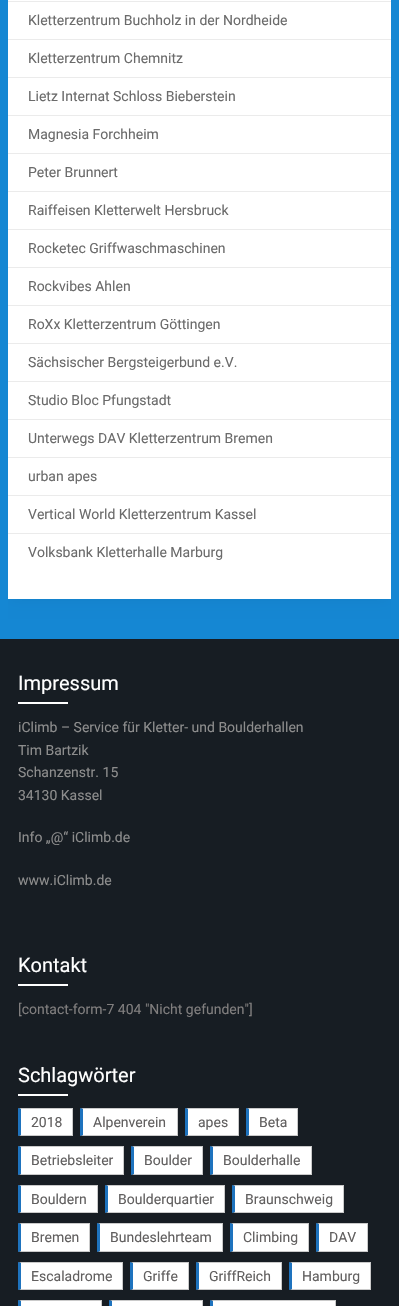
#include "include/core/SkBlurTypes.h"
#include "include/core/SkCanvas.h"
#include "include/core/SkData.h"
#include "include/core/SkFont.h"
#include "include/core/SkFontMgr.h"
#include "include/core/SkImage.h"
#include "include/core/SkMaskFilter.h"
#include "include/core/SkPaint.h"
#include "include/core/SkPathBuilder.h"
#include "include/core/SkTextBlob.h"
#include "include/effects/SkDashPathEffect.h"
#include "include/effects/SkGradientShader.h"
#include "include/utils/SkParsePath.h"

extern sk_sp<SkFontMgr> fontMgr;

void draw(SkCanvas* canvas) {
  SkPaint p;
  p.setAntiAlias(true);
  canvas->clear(SkColorSetRGB(21, 135, 211));
  canvas->save();
  canvas->clipRect(SkRect::MakeLTRB(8, 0, 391, 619));
  p.setColor(SkColorSetARGB(13, 0, 0, 0));
  p.setMaskFilter(SkMaskFilter::MakeBlur(kNormal_SkBlurStyle, 7.5f));
  canvas->drawRect(SkRect::MakeLTRB(8, -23, 391, 600), p);
  p.setMaskFilter(nullptr);
  canvas->restore();
  p.setColor(SK_ColorWHITE);
  canvas->drawRect(SkRect::MakeLTRB(8, 0, 391, 599), p);
  p.setColor(SkColorSetRGB(235, 235, 235));
  canvas->drawRect(SkRect::MakeLTRB(8, 1, 391, 2), p);
  canvas->drawRect(SkRect::MakeLTRB(8, 39, 391, 40), p);
  canvas->drawRect(SkRect::MakeLTRB(8, 77, 391, 78), p);
  canvas->drawRect(SkRect::MakeLTRB(8, 115, 391, 116), p);
  canvas->drawRect(SkRect::MakeLTRB(8, 153, 391, 154), p);
  canvas->drawRect(SkRect::MakeLTRB(8, 191, 391, 192), p);
  canvas->drawRect(SkRect::MakeLTRB(8, 229, 391, 230), p);
  canvas->drawRect(SkRect::MakeLTRB(8, 267, 391, 268), p);
  canvas->drawRect(SkRect::MakeLTRB(8, 305, 391, 306), p);
  canvas->drawRect(SkRect::MakeLTRB(8, 343, 391, 344), p);
  canvas->drawRect(SkRect::MakeLTRB(8, 381, 391, 382), p);
  canvas->drawRect(SkRect::MakeLTRB(8, 419, 391, 420), p);
  canvas->drawRect(SkRect::MakeLTRB(8, 457, 391, 458), p);
  canvas->drawRect(SkRect::MakeLTRB(8, 495, 391, 496), p);
  canvas->drawRect(SkRect::MakeLTRB(8, 533, 391, 534), p);
  p.setColor(SkColorSetRGB(23, 29, 35));
  canvas->drawRect(SkRect::MakeLTRB(0, 639, 399, 1306), p);
  p.setColor(SK_ColorWHITE);
  canvas->drawRect(SkRect::MakeLTRB(18, 702, 68, 704), p);
  canvas->drawRect(SkRect::MakeLTRB(18, 984, 68, 986), p);
  canvas->drawRect(SkRect::MakeLTRB(18, 1094, 68, 1096), p);
  canvas->drawRect(SkRect::MakeLTRB(21, 1109, 72, 1135), p);
  p.setColor(SkColorSetRGB(202, 202, 202));
  canvas->drawPath(SkPathBuilder().moveTo(18, 1108).lineTo(73, 1108).lineTo(72, 1109).lineTo(21, 1109).close().detach(), p);
  canvas->drawRect(SkRect::MakeLTRB(72, 1108, 73, 1136), p);
  canvas->drawPath(SkPathBuilder().moveTo(73, 1136).lineTo(18, 1136).lineTo(21, 1135).lineTo(72, 1135).close().detach(), p);
  p.setColor(SkColorSetRGB(30, 115, 190));
  canvas->drawPath(SkPathBuilder().moveTo(18, 1136).lineTo(18, 1108).lineTo(21, 1109).lineTo(21, 1135).close().detach(), p);
  p.setColor(SK_ColorWHITE);
  canvas->drawRect(SkRect::MakeLTRB(83, 1109, 177, 1135), p);
  p.setColor(SkColorSetRGB(202, 202, 202));
  canvas->drawPath(SkPathBuilder().moveTo(80, 1108).lineTo(178, 1108).lineTo(177, 1109).lineTo(83, 1109).close().detach(), p);
  canvas->drawRect(SkRect::MakeLTRB(177, 1108, 178, 1136), p);
  canvas->drawPath(SkPathBuilder().moveTo(178, 1136).lineTo(80, 1136).lineTo(83, 1135).lineTo(177, 1135).close().detach(), p);
  p.setColor(SkColorSetRGB(30, 115, 190));
  canvas->drawPath(SkPathBuilder().moveTo(80, 1136).lineTo(80, 1108).lineTo(83, 1109).lineTo(83, 1135).close().detach(), p);
  p.setColor(SK_ColorWHITE);
  canvas->drawRect(SkRect::MakeLTRB(188, 1109, 238, 1135), p);
  p.setColor(SkColorSetRGB(202, 202, 202));
  canvas->drawPath(SkPathBuilder().moveTo(185, 1108).lineTo(239, 1108).lineTo(238, 1109).lineTo(188, 1109).close().detach(), p);
  canvas->drawRect(SkRect::MakeLTRB(238, 1108, 239, 1136), p);
  canvas->drawPath(SkPathBuilder().moveTo(239, 1136).lineTo(185, 1136).lineTo(188, 1135).lineTo(238, 1135).close().detach(), p);
  p.setColor(SkColorSetRGB(30, 115, 190));
  canvas->drawPath(SkPathBuilder().moveTo(185, 1136).lineTo(185, 1108).lineTo(188, 1109).lineTo(188, 1135).close().detach(), p);
  p.setColor(SK_ColorWHITE);
  canvas->drawRect(SkRect::MakeLTRB(249, 1109, 297, 1135), p);
  p.setColor(SkColorSetRGB(202, 202, 202));
  canvas->drawPath(SkPathBuilder().moveTo(246, 1108).lineTo(298, 1108).lineTo(297, 1109).lineTo(249, 1109).close().detach(), p);
  canvas->drawRect(SkRect::MakeLTRB(297, 1108, 298, 1136), p);
  canvas->drawPath(SkPathBuilder().moveTo(298, 1136).lineTo(246, 1136).lineTo(249, 1135).lineTo(297, 1135).close().detach(), p);
  p.setColor(SkColorSetRGB(30, 115, 190));
  canvas->drawPath(SkPathBuilder().moveTo(246, 1136).lineTo(246, 1108).lineTo(249, 1109).lineTo(249, 1135).close().detach(), p);
  p.setColor(SK_ColorWHITE);
  canvas->drawRect(SkRect::MakeLTRB(21, 1147, 123, 1174), p);
  p.setColor(SkColorSetRGB(202, 202, 202));
  canvas->drawPath(SkPathBuilder().moveTo(18, 1146).lineTo(124, 1146).lineTo(123, 1147).lineTo(21, 1147).close().detach(), p);
  canvas->drawRect(SkRect::MakeLTRB(123, 1146, 124, 1175), p);
  canvas->drawPath(SkPathBuilder().moveTo(124, 1175).lineTo(18, 1175).lineTo(21, 1174).lineTo(123, 1174).close().detach(), p);
  p.setColor(SkColorSetRGB(30, 115, 190));
  canvas->drawPath(SkPathBuilder().moveTo(18, 1175).lineTo(18, 1146).lineTo(21, 1147).lineTo(21, 1174).close().detach(), p);
  p.setColor(SK_ColorWHITE);
  canvas->drawRect(SkRect::MakeLTRB(134, 1147, 202, 1174), p);
  p.setColor(SkColorSetRGB(202, 202, 202));
  canvas->drawPath(SkPathBuilder().moveTo(131, 1146).lineTo(203, 1146).lineTo(202, 1147).lineTo(134, 1147).close().detach(), p);
  canvas->drawRect(SkRect::MakeLTRB(202, 1146, 203, 1175), p);
  canvas->drawPath(SkPathBuilder().moveTo(203, 1175).lineTo(131, 1175).lineTo(134, 1174).lineTo(202, 1174).close().detach(), p);
  p.setColor(SkColorSetRGB(30, 115, 190));
  canvas->drawPath(SkPathBuilder().moveTo(131, 1175).lineTo(131, 1146).lineTo(134, 1147).lineTo(134, 1174).close().detach(), p);
  p.setColor(SK_ColorWHITE);
  canvas->drawRect(SkRect::MakeLTRB(213, 1147, 311, 1174), p);
  p.setColor(SkColorSetRGB(202, 202, 202));
  canvas->drawPath(SkPathBuilder().moveTo(210, 1146).lineTo(312, 1146).lineTo(311, 1147).lineTo(213, 1147).close().detach(), p);
  canvas->drawRect(SkRect::MakeLTRB(311, 1146, 312, 1175), p);
  canvas->drawPath(SkPathBuilder().moveTo(312, 1175).lineTo(210, 1175).lineTo(213, 1174).lineTo(311, 1174).close().detach(), p);
  p.setColor(SkColorSetRGB(30, 115, 190));
  canvas->drawPath(SkPathBuilder().moveTo(210, 1175).lineTo(210, 1146).lineTo(213, 1147).lineTo(213, 1174).close().detach(), p);
  p.setColor(SK_ColorWHITE);
  canvas->drawRect(SkRect::MakeLTRB(21, 1186, 97, 1212), p);
  p.setColor(SkColorSetRGB(202, 202, 202));
  canvas->drawPath(SkPathBuilder().moveTo(18, 1185).lineTo(98, 1185).lineTo(97, 1186).lineTo(21, 1186).close().detach(), p);
  canvas->drawRect(SkRect::MakeLTRB(97, 1185, 98, 1213), p);
  canvas->drawPath(SkPathBuilder().moveTo(98, 1213).lineTo(18, 1213).lineTo(21, 1212).lineTo(97, 1212).close().detach(), p);
  p.setColor(SkColorSetRGB(30, 115, 190));
  canvas->drawPath(SkPathBuilder().moveTo(18, 1213).lineTo(18, 1185).lineTo(21, 1186).lineTo(21, 1212).close().detach(), p);
  p.setColor(SK_ColorWHITE);
  canvas->drawRect(SkRect::MakeLTRB(108, 1186, 224, 1212), p);
  p.setColor(SkColorSetRGB(202, 202, 202));
  canvas->drawPath(SkPathBuilder().moveTo(105, 1185).lineTo(225, 1185).lineTo(224, 1186).lineTo(108, 1186).close().detach(), p);
  canvas->drawRect(SkRect::MakeLTRB(224, 1185, 225, 1213), p);
  canvas->drawPath(SkPathBuilder().moveTo(225, 1213).lineTo(105, 1213).lineTo(108, 1212).lineTo(224, 1212).close().detach(), p);
  p.setColor(SkColorSetRGB(30, 115, 190));
  canvas->drawPath(SkPathBuilder().moveTo(105, 1213).lineTo(105, 1185).lineTo(108, 1186).lineTo(108, 1212).close().detach(), p);
  p.setColor(SK_ColorWHITE);
  canvas->drawRect(SkRect::MakeLTRB(235, 1186, 343, 1212), p);
  p.setColor(SkColorSetRGB(202, 202, 202));
  canvas->drawPath(SkPathBuilder().moveTo(232, 1185).lineTo(344, 1185).lineTo(343, 1186).lineTo(235, 1186).close().detach(), p);
  canvas->drawRect(SkRect::MakeLTRB(343, 1185, 344, 1213), p);
  canvas->drawPath(SkPathBuilder().moveTo(344, 1213).lineTo(232, 1213).lineTo(235, 1212).lineTo(343, 1212).close().detach(), p);
  p.setColor(SkColorSetRGB(30, 115, 190));
  canvas->drawPath(SkPathBuilder().moveTo(232, 1213).lineTo(232, 1185).lineTo(235, 1186).lineTo(235, 1212).close().detach(), p);
  p.setColor(SK_ColorWHITE);
  canvas->drawRect(SkRect::MakeLTRB(21, 1224, 89, 1251), p);
  p.setColor(SkColorSetRGB(202, 202, 202));
  canvas->drawPath(SkPathBuilder().moveTo(18, 1223).lineTo(90, 1223).lineTo(89, 1224).lineTo(21, 1224).close().detach(), p);
  canvas->drawRect(SkRect::MakeLTRB(89, 1223, 90, 1252), p);
  canvas->drawPath(SkPathBuilder().moveTo(90, 1252).lineTo(18, 1252).lineTo(21, 1251).lineTo(89, 1251).close().detach(), p);
  p.setColor(SkColorSetRGB(30, 115, 190));
  canvas->drawPath(SkPathBuilder().moveTo(18, 1252).lineTo(18, 1223).lineTo(21, 1224).lineTo(21, 1251).close().detach(), p);
  p.setColor(SK_ColorWHITE);
  canvas->drawRect(SkRect::MakeLTRB(100, 1224, 222, 1251), p);
  p.setColor(SkColorSetRGB(202, 202, 202));
  canvas->drawPath(SkPathBuilder().moveTo(97, 1223).lineTo(223, 1223).lineTo(222, 1224).lineTo(100, 1224).close().detach(), p);
  canvas->drawRect(SkRect::MakeLTRB(222, 1223, 223, 1252), p);
  canvas->drawPath(SkPathBuilder().moveTo(223, 1252).lineTo(97, 1252).lineTo(100, 1251).lineTo(222, 1251).close().detach(), p);
  p.setColor(SkColorSetRGB(30, 115, 190));
  canvas->drawPath(SkPathBuilder().moveTo(97, 1252).lineTo(97, 1223).lineTo(100, 1224).lineTo(100, 1251).close().detach(), p);
  p.setColor(SK_ColorWHITE);
  canvas->drawRect(SkRect::MakeLTRB(233, 1224, 308, 1251), p);
  p.setColor(SkColorSetRGB(202, 202, 202));
  canvas->drawPath(SkPathBuilder().moveTo(230, 1223).lineTo(309, 1223).lineTo(308, 1224).lineTo(233, 1224).close().detach(), p);
  canvas->drawRect(SkRect::MakeLTRB(308, 1223, 309, 1252), p);
  canvas->drawPath(SkPathBuilder().moveTo(309, 1252).lineTo(230, 1252).lineTo(233, 1251).lineTo(308, 1251).close().detach(), p);
  p.setColor(SkColorSetRGB(30, 115, 190));
  canvas->drawPath(SkPathBuilder().moveTo(230, 1252).lineTo(230, 1223).lineTo(233, 1224).lineTo(233, 1251).close().detach(), p);
  p.setColor(SK_ColorWHITE);
  canvas->drawRect(SkRect::MakeLTRB(319, 1224, 367, 1251), p);
  p.setColor(SkColorSetRGB(202, 202, 202));
  canvas->drawPath(SkPathBuilder().moveTo(316, 1223).lineTo(368, 1223).lineTo(367, 1224).lineTo(319, 1224).close().detach(), p);
  canvas->drawRect(SkRect::MakeLTRB(367, 1223, 368, 1252), p);
  canvas->drawPath(SkPathBuilder().moveTo(368, 1252).lineTo(316, 1252).lineTo(319, 1251).lineTo(367, 1251).close().detach(), p);
  p.setColor(SkColorSetRGB(30, 115, 190));
  canvas->drawPath(SkPathBuilder().moveTo(316, 1252).lineTo(316, 1223).lineTo(319, 1224).lineTo(319, 1251).close().detach(), p);
  p.setColor(SK_ColorWHITE);
  canvas->drawRect(SkRect::MakeLTRB(21, 1263, 122, 1289), p);
  p.setColor(SkColorSetRGB(202, 202, 202));
  canvas->drawPath(SkPathBuilder().moveTo(18, 1262).lineTo(123, 1262).lineTo(122, 1263).lineTo(21, 1263).close().detach(), p);
  canvas->drawRect(SkRect::MakeLTRB(122, 1262, 123, 1290), p);
  canvas->drawPath(SkPathBuilder().moveTo(123, 1290).lineTo(18, 1290).lineTo(21, 1289).lineTo(122, 1289).close().detach(), p);
  p.setColor(SkColorSetRGB(30, 115, 190));
  canvas->drawPath(SkPathBuilder().moveTo(18, 1290).lineTo(18, 1262).lineTo(21, 1263).lineTo(21, 1289).close().detach(), p);
  p.setColor(SK_ColorWHITE);
  canvas->drawRect(SkRect::MakeLTRB(133, 1263, 188, 1289), p);
  p.setColor(SkColorSetRGB(202, 202, 202));
  canvas->drawPath(SkPathBuilder().moveTo(130, 1262).lineTo(189, 1262).lineTo(188, 1263).lineTo(133, 1263).close().detach(), p);
  canvas->drawRect(SkRect::MakeLTRB(188, 1262, 189, 1290), p);
  canvas->drawPath(SkPathBuilder().moveTo(189, 1290).lineTo(130, 1290).lineTo(133, 1289).lineTo(188, 1289).close().detach(), p);
  p.setColor(SkColorSetRGB(30, 115, 190));
  canvas->drawPath(SkPathBuilder().moveTo(130, 1290).lineTo(130, 1262).lineTo(133, 1263).lineTo(133, 1289).close().detach(), p);
  p.setColor(SK_ColorWHITE);
  canvas->drawRect(SkRect::MakeLTRB(199, 1263, 281, 1289), p);
  p.setColor(SkColorSetRGB(202, 202, 202));
  canvas->drawPath(SkPathBuilder().moveTo(196, 1262).lineTo(282, 1262).lineTo(281, 1263).lineTo(199, 1263).close().detach(), p);
  canvas->drawRect(SkRect::MakeLTRB(281, 1262, 282, 1290), p);
  canvas->drawPath(SkPathBuilder().moveTo(282, 1290).lineTo(196, 1290).lineTo(199, 1289).lineTo(281, 1289).close().detach(), p);
  p.setColor(SkColorSetRGB(30, 115, 190));
  canvas->drawPath(SkPathBuilder().moveTo(196, 1290).lineTo(196, 1262).lineTo(199, 1263).lineTo(199, 1289).close().detach(), p);
  p.setColor(SK_ColorWHITE);
  canvas->drawRect(SkRect::MakeLTRB(292, 1263, 370, 1289), p);
  p.setColor(SkColorSetRGB(202, 202, 202));
  canvas->drawPath(SkPathBuilder().moveTo(289, 1262).lineTo(371, 1262).lineTo(370, 1263).lineTo(292, 1263).close().detach(), p);
  canvas->drawRect(SkRect::MakeLTRB(370, 1262, 371, 1290), p);
  canvas->drawPath(SkPathBuilder().moveTo(371, 1290).lineTo(289, 1290).lineTo(292, 1289).lineTo(370, 1289).close().detach(), p);
  p.setColor(SkColorSetRGB(30, 115, 190));
  canvas->drawPath(SkPathBuilder().moveTo(289, 1290).lineTo(289, 1262).lineTo(292, 1263).lineTo(292, 1289).close().detach(), p);
  p.setColor(SK_ColorWHITE);
  canvas->drawRect(SkRect::MakeLTRB(21, 1301, 101, 1306), p);
  p.setColor(SkColorSetRGB(202, 202, 202));
  canvas->drawPath(SkPathBuilder().moveTo(18, 1300).lineTo(102, 1300).lineTo(101, 1301).lineTo(21, 1301).close().detach(), p);
  canvas->drawRect(SkRect::MakeLTRB(101, 1300, 102, 1306), p);
  p.setColor(SkColorSetRGB(30, 115, 190));
  canvas->drawPath(SkPathBuilder().moveTo(18, 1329).lineTo(18, 1300).lineTo(21, 1301).lineTo(21, 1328).close().detach(), p);
  p.setColor(SK_ColorWHITE);
  canvas->drawRect(SkRect::MakeLTRB(112, 1301, 202, 1306), p);
  p.setColor(SkColorSetRGB(202, 202, 202));
  canvas->drawPath(SkPathBuilder().moveTo(109, 1300).lineTo(203, 1300).lineTo(202, 1301).lineTo(112, 1301).close().detach(), p);
  canvas->drawRect(SkRect::MakeLTRB(202, 1300, 203, 1306), p);
  p.setColor(SkColorSetRGB(30, 115, 190));
  canvas->drawPath(SkPathBuilder().moveTo(109, 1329).lineTo(109, 1300).lineTo(112, 1301).lineTo(112, 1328).close().detach(), p);
  p.setColor(SK_ColorWHITE);
  canvas->drawRect(SkRect::MakeLTRB(213, 1301, 335, 1306), p);
  p.setColor(SkColorSetRGB(202, 202, 202));
  canvas->drawPath(SkPathBuilder().moveTo(210, 1300).lineTo(336, 1300).lineTo(335, 1301).lineTo(213, 1301).close().detach(), p);
  canvas->drawRect(SkRect::MakeLTRB(335, 1300, 336, 1306), p);
  p.setColor(SkColorSetRGB(30, 115, 190));
  canvas->drawPath(SkPathBuilder().moveTo(210, 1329).lineTo(210, 1300).lineTo(213, 1301).lineTo(213, 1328).close().detach(), p);
  SkFont font1(fontMgr->matchFamilyStyle("Roboto", SkFontStyle::Normal()), 14);
  font1.setSubpixel(true);
  p.setColor(SkColorSetRGB(107, 107, 107));
  canvas->drawString("Kletterzentrum Buchholz in der Nordheide", 28, 25, font1, p);
  canvas->drawString("Kletterzentrum Chemnitz", 28, 63, font1, p);
  canvas->drawString("Lietz Internat Schloss Bieberstein", 28, 101, font1, p);
  canvas->drawString("Magnesia Forchheim", 28, 139, font1, p);
  canvas->drawString("Peter Brunnert", 28, 177, font1, p);
  canvas->drawString("Raiffeisen Kletterwelt Hersbruck", 28, 215, font1, p);
  canvas->drawString("Rocketec Griffwaschmaschinen", 28, 253, font1, p);
  canvas->drawString("Rockvibes Ahlen", 28, 291, font1, p);
  canvas->drawString("RoXx Kletterzentrum Göttingen", 28, 329, font1, p);
  canvas->drawString("Sächsischer Bergsteigerbund e.V.", 28, 367, font1, p);
  canvas->drawString("Studio Bloc Pfungstadt", 28, 405, font1, p);
  canvas->drawString("Unterwegs DAV Kletterzentrum Bremen", 28, 443, font1, p);
  canvas->drawString("urban apes", 28, 481, font1, p);
  canvas->drawString("Vertical World Kletterzentrum Kassel", 28, 519, font1, p);
  canvas->drawString("Volksbank Kletterhalle Marburg", 28, 557, font1, p);
  SkFont font2(fontMgr->matchFamilyStyle("Roboto", SkFontStyle::Normal()), 20);
  font2.setSubpixel(true);
  p.setColor(SK_ColorWHITE);
  canvas->drawString("Impressum", 18, 690, font2, p);
  p.setColor(SkColorSetRGB(141, 141, 141));
  canvas->drawString("iClimb – Service für Kletter- und Boulderhallen", 18, 732, font1, p);
  canvas->drawString("Tim Bartzik", 18, 755, font1, p);
  canvas->drawString("Schanzenstr. 15", 18, 777, font1, p);
  canvas->drawString("34130 Kassel", 18, 800, font1, p);
  canvas->drawString("Info „@“ iClimb.de", 18, 842, font1, p);
  canvas->drawString("www.iClimb.de", 18, 885, font1, p);
  p.setColor(SK_ColorWHITE);
  canvas->drawString("Kontakt", 18, 972, font2, p);
  p.setColor(SkColorSetRGB(128, 126, 126));
  canvas->drawString("[contact-form-7 404 \"Nicht gefunden\"]", 18, 1014, font1, p);
  p.setColor(SK_ColorWHITE);
  canvas->drawString("Schlagwörter", 18, 1082, font2, p);
  p.setColor(SkColorSetRGB(97, 95, 95));
  canvas->drawString("2018", 31, 1127, font1, p);
  canvas->drawString("Alpenverein", 93, 1127, font1, p);
  canvas->drawString("apes", 198, 1127, font1, p);
  canvas->drawString("Beta", 259, 1127, font1, p);
  canvas->drawString("Betriebsleiter", 31, 1165, font1, p);
  canvas->drawString("Boulder", 144, 1165, font1, p);
  canvas->drawString("Boulderhalle", 223, 1165, font1, p);
  canvas->drawString("Bouldern", 31, 1204, font1, p);
  canvas->drawString("Boulderquartier", 118, 1204, font1, p);
  canvas->drawString("Braunschweig", 245, 1204, font1, p);
  canvas->drawString("Bremen", 31, 1242, font1, p);
  canvas->drawString("Bundeslehrteam", 110, 1242, font1, p);
  canvas->drawString("Climbing", 243, 1242, font1, p);
  canvas->drawString("DAV", 329, 1242, font1, p);
  canvas->drawString("Escaladrome", 31, 1281, font1, p);
  canvas->drawString("Griffe", 143, 1281, font1, p);
  canvas->drawString("GriffReich", 209, 1281, font1, p);
  canvas->drawString("Hamburg", 302, 1281, font1, p);
}
